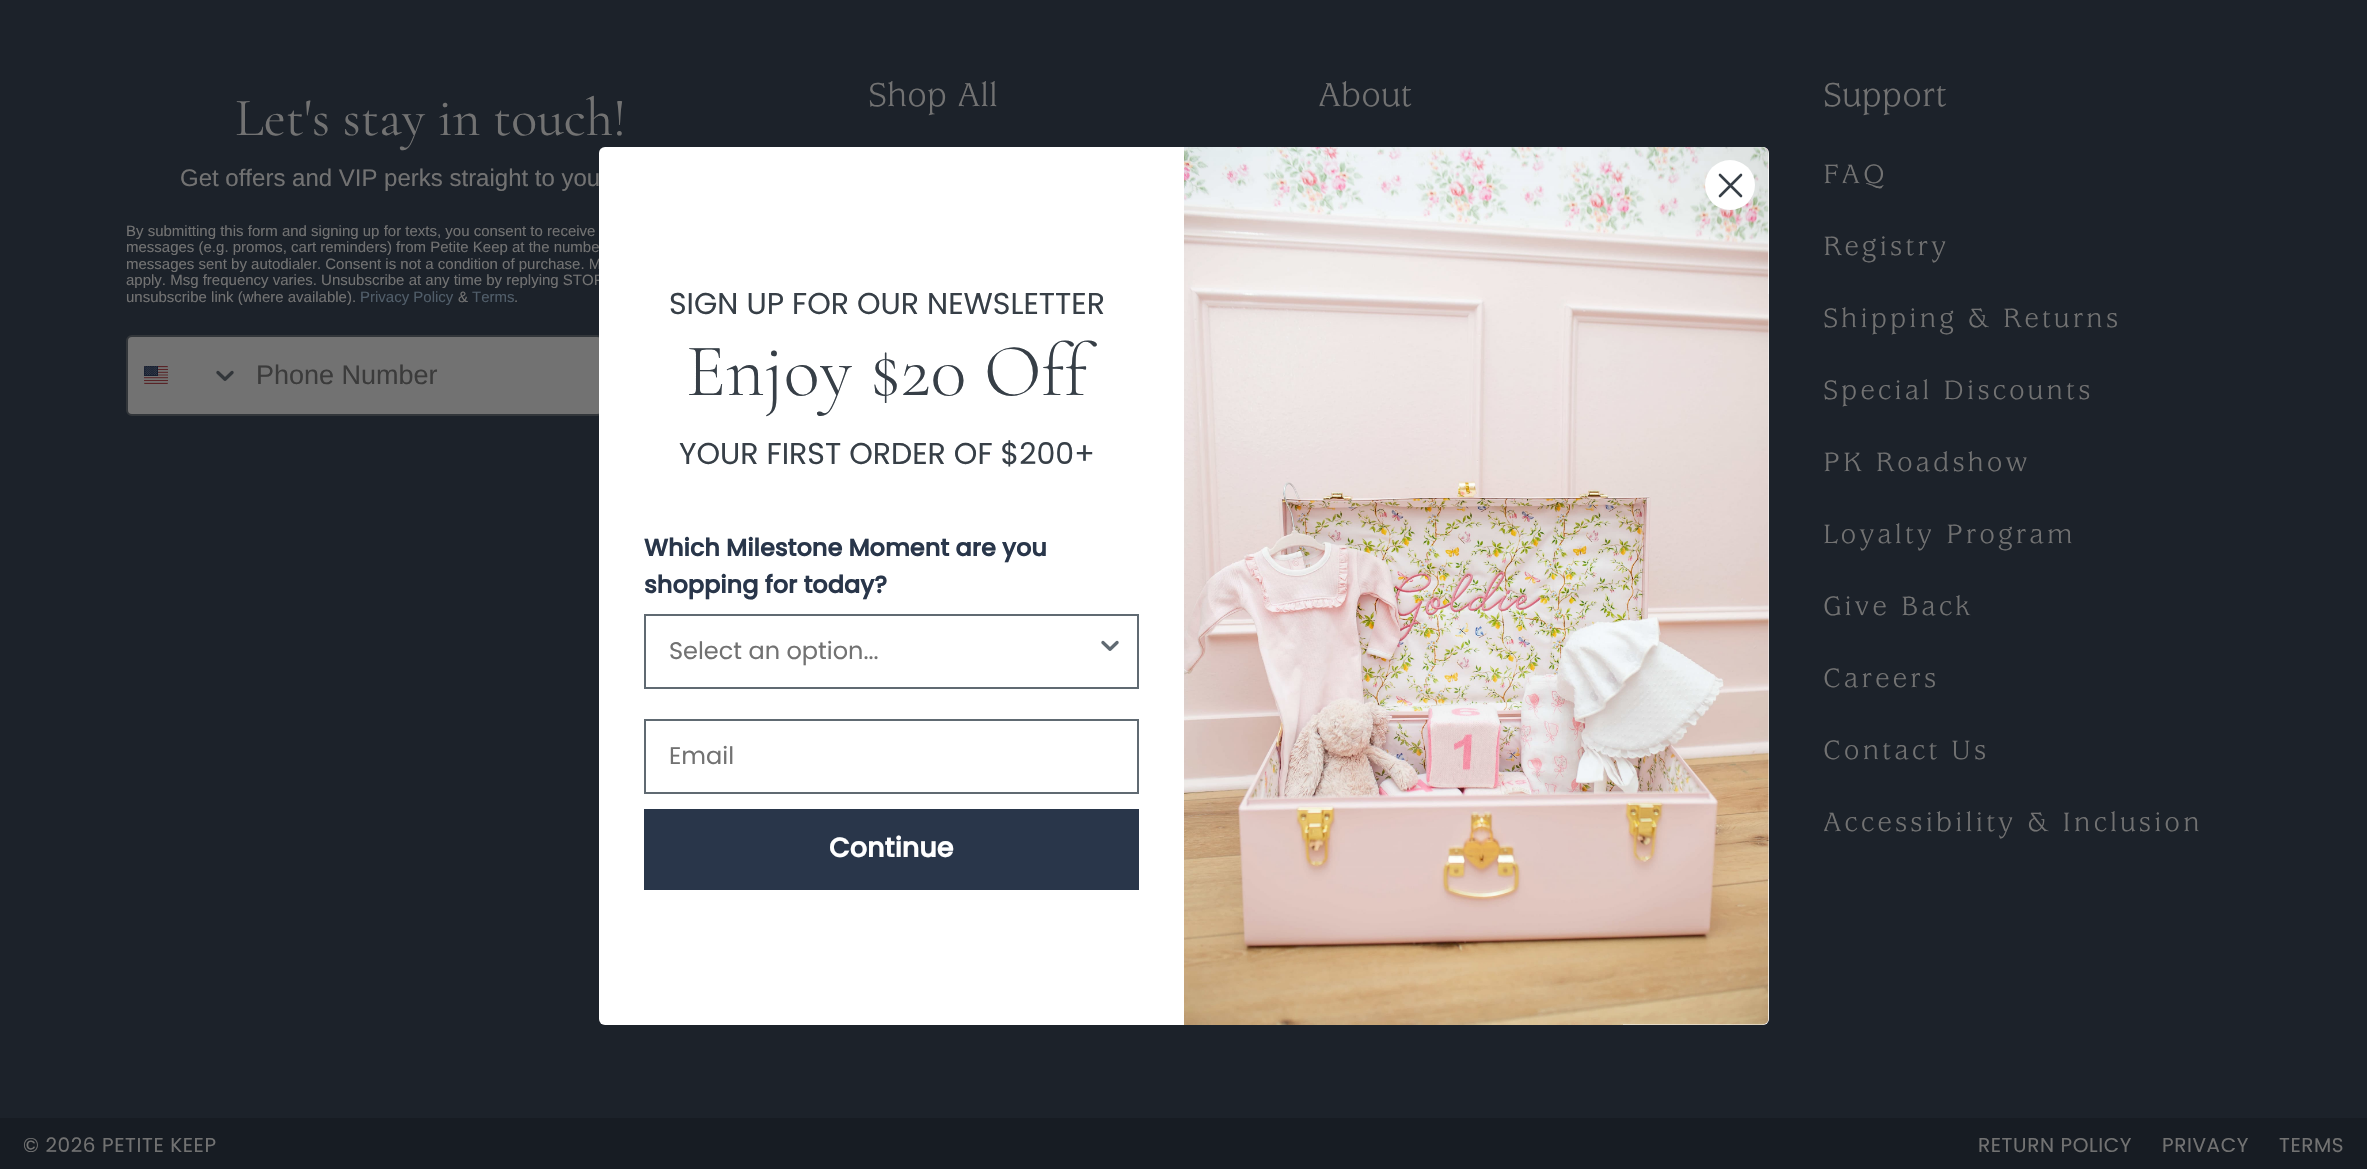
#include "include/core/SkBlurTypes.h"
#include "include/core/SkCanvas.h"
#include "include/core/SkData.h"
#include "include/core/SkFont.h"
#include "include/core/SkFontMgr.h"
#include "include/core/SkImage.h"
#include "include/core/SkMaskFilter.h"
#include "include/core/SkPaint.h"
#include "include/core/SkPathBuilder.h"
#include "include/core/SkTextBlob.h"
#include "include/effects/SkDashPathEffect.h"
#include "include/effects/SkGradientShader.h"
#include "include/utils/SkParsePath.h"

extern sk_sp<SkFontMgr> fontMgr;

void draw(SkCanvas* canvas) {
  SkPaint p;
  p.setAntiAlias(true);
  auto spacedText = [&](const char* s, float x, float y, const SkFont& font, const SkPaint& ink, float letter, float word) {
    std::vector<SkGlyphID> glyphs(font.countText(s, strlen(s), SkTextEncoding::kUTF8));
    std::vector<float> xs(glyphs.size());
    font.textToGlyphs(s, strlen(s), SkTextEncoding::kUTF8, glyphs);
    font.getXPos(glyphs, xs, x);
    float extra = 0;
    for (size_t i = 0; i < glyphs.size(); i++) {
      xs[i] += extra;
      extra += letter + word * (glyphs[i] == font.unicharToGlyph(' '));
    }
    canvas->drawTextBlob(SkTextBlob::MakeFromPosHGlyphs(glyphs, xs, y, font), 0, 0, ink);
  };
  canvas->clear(SkColorSetRGB(28, 34, 42));
  p.setColor(SkColorSetRGB(114, 114, 114));
  canvas->drawRoundRect(SkRect::MakeLTRB(127, 336, 602, 415), 5, 5, p);
  p.setStyle(SkPaint::kStroke_Style);
  p.setStrokeWidth(2);
  p.setColor(SkColorSetRGB(50, 54, 58));
  canvas->drawRoundRect(SkRect::MakeLTRB(127, 336, 602, 415), 5, 5, p);
  canvas->drawImageRect(SkImages::DeferredFromEncodedData(SkData::MakeFromFileName("images/1.png")), SkRect::MakeLTRB(144, 366, 168, 384), SkSamplingOptions());
  canvas->drawImageRect(SkImages::DeferredFromEncodedData(SkData::MakeFromFileName("images/2.png")), SkRect::MakeLTRB(216, 370, 234, 381), SkSamplingOptions());
  p.setStyle(SkPaint::kFill_Style);
  p.setColor(SkColorSetRGB(23, 28, 35));
  canvas->drawRect(SkRect::MakeLTRB(0, 1118, 2367, 1169), p);
  SkFont font1(fontMgr->matchFamilyStyle("Cormorant Garamond", SkFontStyle::Normal()), 54);
  font1.setSubpixel(true);
  p.setColor(SkColorSetRGB(114, 114, 114));
  canvas->drawString("Let's stay in touch!", 235, 135, font1, p);
  SkFont font2(fontMgr->matchFamilyStyle("Liberation Sans", SkFontStyle::Normal()), 24);
  font2.setSubpixel(true);
  canvas->drawString("Get offers and VIP perks straight to you", 180, 186, font2, p);
  SkFont font3(fontMgr->matchFamilyStyle("Liberation Sans", SkFontStyle::Normal()), 15);
  font3.setSubpixel(true);
  canvas->drawString("By submitting this form and signing up for texts, you consent to receive", 126, 236, font3, p);
  canvas->drawString("messages (e.g. promos, cart reminders) from Petite Keep at the numbe", 126, 252, font3, p);
  canvas->drawString("messages sent by autodialer. Consent is not a condition of purchase. M", 126, 269, font3, p);
  canvas->drawString("apply. Msg frequency varies. Unsubscribe at any time by replying STOP", 126, 285, font3, p);
  canvas->drawString("unsubscribe link (where available).", 126, 302, font3, p);
  p.setColor(SkColorSetRGB(80, 93, 105));
  canvas->drawString("Privacy Policy", 360, 302, font3, p);
  p.setColor(SkColorSetRGB(114, 114, 114));
  canvas->drawString("&", 458, 302, font3, p);
  p.setColor(SkColorSetRGB(80, 93, 105));
  canvas->drawString("Terms", 472, 302, font3, p);
  p.setColor(SkColorSetRGB(114, 114, 114));
  canvas->drawString(".", 514, 302, font3, p);
  SkFont font4(fontMgr->matchFamilyStyle("Liberation Sans", SkFontStyle::Normal()), 27);
  font4.setSubpixel(true);
  p.setColor(SkColorSetRGB(59, 59, 59));
  canvas->drawString("Phone Number", 256, 384, font4, p);
  SkFont font5(fontMgr->matchFamilyStyle("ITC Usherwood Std", SkFontStyle::Normal()), 36.5f);
  font5.setSubpixel(true);
  p.setColor(SkColorSetRGB(114, 114, 114));
  canvas->drawString("Shop All", 868, 106, font5, p);
  canvas->drawString("About", 1318, 106, font5, p);
  canvas->drawString("Support", 1823, 106, font5, p);
  SkFont font6(fontMgr->matchFamilyStyle("ITC Usherwood Std", SkFontStyle::Normal()), 29.25f);
  font6.setSubpixel(true);
  spacedText("FAQ", 1823, 183, font6, p, 2.9f, 0);
  spacedText("Registry", 1823, 255, font6, p, 2.9f, 0);
  spacedText("Shipping & Returns", 1823, 327, font6, p, 2.9f, 0);
  spacedText("Special Discounts", 1823, 399, font6, p, 2.9f, 0);
  spacedText("PK Roadshow", 1823, 471, font6, p, 2.9f, 0);
  spacedText("Loyalty Program", 1823, 543, font6, p, 2.9f, 0);
  spacedText("Give Back", 1823, 615, font6, p, 2.9f, 0);
  spacedText("Careers", 1823, 687, font6, p, 2.9f, 0);
  spacedText("Contact Us", 1823, 759, font6, p, 2.9f, 0);
  spacedText("Accessibility & Inclusion", 1823, 831, font6, p, 2.9f, 0);
  SkFont font7(fontMgr->matchFamilyStyle("Poppins", SkFontStyle::Normal()), 20);
  font7.setSubpixel(true);
  spacedText("© 2026 PETITE KEEP", 23, 1152, font7, p, 0.6f, 0);
  spacedText("RETURN POLICY", 1978, 1152, font7, p, 0.6f, 0);
  spacedText("PRIVACY", 2162, 1152, font7, p, 0.6f, 0);
  spacedText("TERMS", 2279, 1152, font7, p, 0.6f, 0);
  p.setColor(SK_ColorWHITE);
  canvas->drawRoundRect(SkRect::MakeLTRB(599, 147, 1769, 1025), 6, 6, p);
  SkFont font8(fontMgr->matchFamilyStyle("Poppins", SkFontStyle::Normal()), 30);
  font8.setSubpixel(true);
  p.setColor(SkColorSetRGB(55, 63, 71));
  canvas->drawString("SIGN UP FOR OUR NEWSLETTER", 669, 314, font8, p);
  SkFont font9(fontMgr->matchFamilyStyle("Cormorant Garamond", SkFontStyle(300, SkFontStyle::kNormal_Width, SkFontStyle::kUpright_Slant)), 75);
  font9.setSubpixel(true);
  canvas->drawString("Enjoy $20 Off", 686, 395, font9, p);
  canvas->drawString("YOUR FIRST ORDER OF $200+", 679, 464, font8, p);
  SkFont font10(fontMgr->matchFamilyStyle("Poppins", SkFontStyle::Bold()), 24);
  font10.setSubpixel(true);
  p.setColor(SkColorSetRGB(41, 54, 74));
  canvas->drawString("Which Milestone Moment are you", 644, 556, font10, p);
  canvas->drawString("shopping for today?", 644, 593, font10, p);
  p.setStyle(SkPaint::kStroke_Style);
  p.setColor(SkColorSetRGB(96, 106, 114));
  canvas->drawRect(SkRect::MakeLTRB(645, 615, 1138, 688), p);
  SkFont font11(fontMgr->matchFamilyStyle("Poppins", SkFontStyle::Normal()), 24);
  font11.setSubpixel(true);
  p.setStyle(SkPaint::kFill_Style);
  p.setColor(SkColorSetRGB(114, 114, 114));
  canvas->drawString("Select an option...", 669, 659, font11, p);
  canvas->drawImageRect(SkImages::DeferredFromEncodedData(SkData::MakeFromFileName("images/3.png")), SkRect::MakeLTRB(1101, 640, 1119, 651), SkSamplingOptions());
  p.setStyle(SkPaint::kStroke_Style);
  p.setColor(SkColorSetRGB(96, 106, 114));
  canvas->drawRect(SkRect::MakeLTRB(645, 720, 1138, 793), p);
  p.setStyle(SkPaint::kFill_Style);
  p.setColor(SkColorSetRGB(114, 114, 114));
  canvas->drawString("Email", 669, 764, font11, p);
  p.setColor(SkColorSetRGB(41, 54, 74));
  canvas->drawRect(SkRect::MakeLTRB(644, 809, 1139, 890), p);
  SkFont font12(fontMgr->matchFamilyStyle("Poppins", SkFontStyle::Bold()), 27);
  font12.setSubpixel(true);
  p.setColor(SK_ColorWHITE);
  canvas->drawString("Continue", 829, 857, font12, p);
  canvas->drawImageRect(SkImages::DeferredFromEncodedData(SkData::MakeFromFileName("images/4.png")), SkRect::MakeLTRB(1184, 147, 1769, 1025), SkSamplingOptions());
  canvas->drawCircle(1730, 185, 25, p);
  p.setStyle(SkPaint::kStroke_Style);
  p.setStrokeWidth(2.6f);
  p.setStrokeCap(SkPaint::kRound_Cap);
  p.setStrokeJoin(SkPaint::kRound_Join);
  p.setColor(SkColorSetRGB(55, 63, 71));
  canvas->drawPath(SkPathBuilder().moveTo(1720, 175).lineTo(1741, 196).moveTo(1720, 196).lineTo(1741, 175).close().detach(), p);
}
